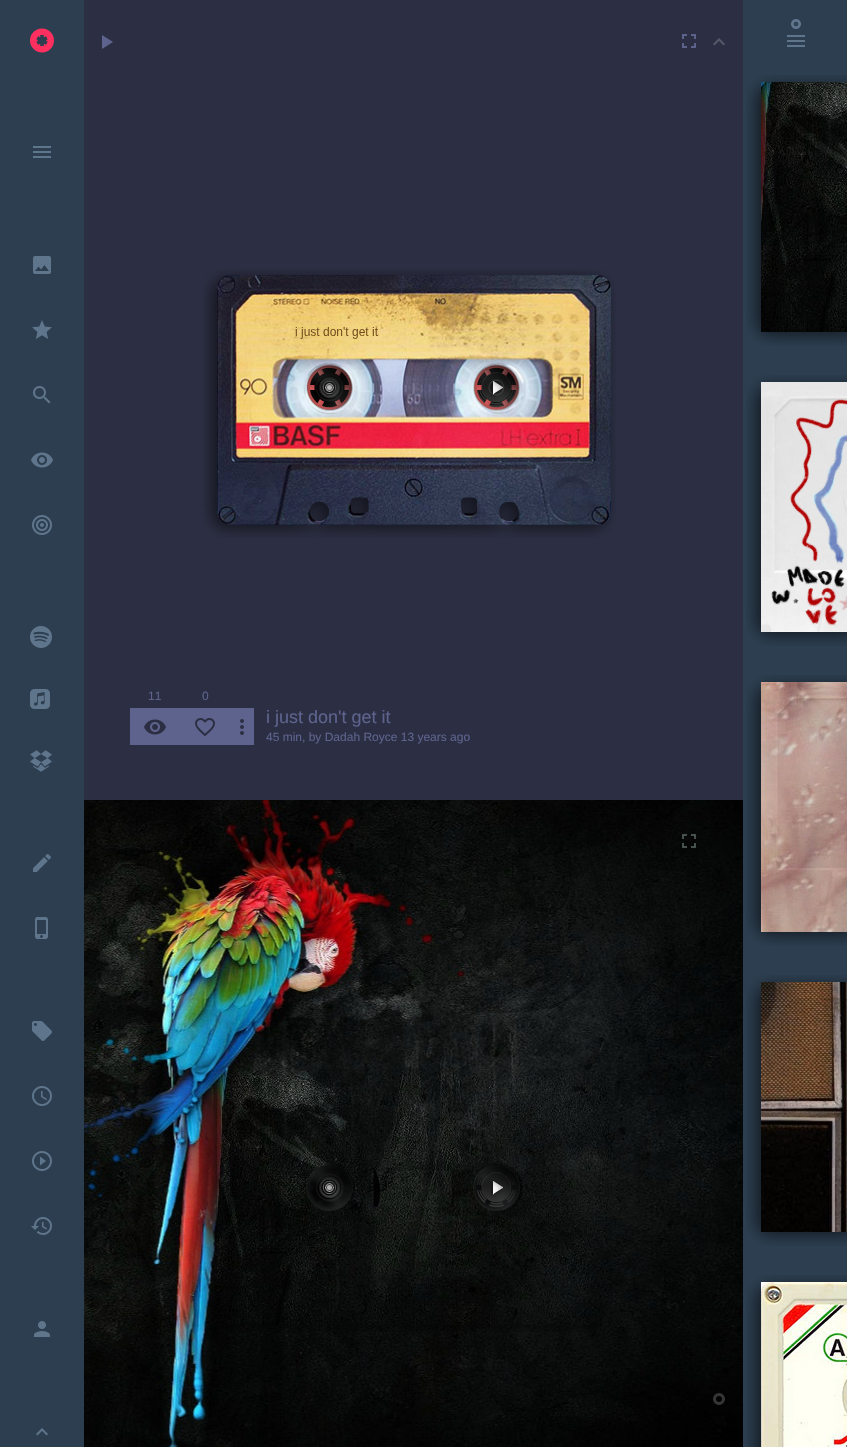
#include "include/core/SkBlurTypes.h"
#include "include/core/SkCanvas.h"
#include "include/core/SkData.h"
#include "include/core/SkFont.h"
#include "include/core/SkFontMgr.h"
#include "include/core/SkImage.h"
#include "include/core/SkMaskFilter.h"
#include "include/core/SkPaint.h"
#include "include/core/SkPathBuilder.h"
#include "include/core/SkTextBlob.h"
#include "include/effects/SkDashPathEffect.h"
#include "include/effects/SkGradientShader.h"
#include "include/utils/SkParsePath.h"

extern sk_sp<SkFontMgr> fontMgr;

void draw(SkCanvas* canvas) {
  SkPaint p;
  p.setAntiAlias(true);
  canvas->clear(SkColorSetRGB(44, 62, 80));
  p.setColor(SkColorSetRGB(44, 47, 67));
  canvas->drawRect(SkRect::MakeLTRB(84, 0, 743, 800), p);
  canvas->drawImageRect(SkImages::DeferredFromEncodedData(SkData::MakeFromFileName("images/21.png")), SkRect::MakeLTRB(203, 269, 616, 538), SkSamplingOptions());
  canvas->drawImageRect(SkImages::DeferredFromEncodedData(SkData::MakeFromFileName("images/1.png")), SkRect::MakeLTRB(217, 275, 611, 525), SkSamplingOptions());
  canvas->drawImageRect(SkImages::DeferredFromEncodedData(SkData::MakeFromFileName("images/2.png")), SkRect::MakeLTRB(30, 28, 54, 53), SkSamplingOptions());
  canvas->drawImageRect(SkImages::DeferredFromEncodedData(SkData::MakeFromFileName("images/3.png")), SkRect::MakeLTRB(33, 146, 51, 158), SkSamplingOptions());
  canvas->drawImageRect(SkImages::DeferredFromEncodedData(SkData::MakeFromFileName("images/4.png")), SkRect::MakeLTRB(33, 256, 51, 274), SkSamplingOptions());
  canvas->drawImageRect(SkImages::DeferredFromEncodedData(SkData::MakeFromFileName("images/5.png")), SkRect::MakeLTRB(32, 320, 52, 339), SkSamplingOptions());
  canvas->drawImageRect(SkImages::DeferredFromEncodedData(SkData::MakeFromFileName("images/6.png")), SkRect::MakeLTRB(33, 386, 51, 404), SkSamplingOptions());
  canvas->drawImageRect(SkImages::DeferredFromEncodedData(SkData::MakeFromFileName("images/7.png")), SkRect::MakeLTRB(31, 452, 53, 468), SkSamplingOptions());
  canvas->drawImageRect(SkImages::DeferredFromEncodedData(SkData::MakeFromFileName("images/8.png")), SkRect::MakeLTRB(32, 515, 52, 535), SkSamplingOptions());
  canvas->drawImageRect(SkImages::DeferredFromEncodedData(SkData::MakeFromFileName("images/9.png")), SkRect::MakeLTRB(30, 626, 52, 648), SkSamplingOptions());
  canvas->drawImageRect(SkImages::DeferredFromEncodedData(SkData::MakeFromFileName("images/10.png")), SkRect::MakeLTRB(30, 689, 50, 709), SkSamplingOptions());
  canvas->drawImageRect(SkImages::DeferredFromEncodedData(SkData::MakeFromFileName("images/11.png")), SkRect::MakeLTRB(30, 750, 52, 772), SkSamplingOptions());
  canvas->drawImageRect(SkImages::DeferredFromEncodedData(SkData::MakeFromFileName("images/12.png")), SkRect::MakeLTRB(33, 854, 51, 872), SkSamplingOptions());
  canvas->drawImageRect(SkImages::DeferredFromEncodedData(SkData::MakeFromFileName("images/13.png")), SkRect::MakeLTRB(35, 917, 48, 939), SkSamplingOptions());
  canvas->drawImageRect(SkImages::DeferredFromEncodedData(SkData::MakeFromFileName("images/14.png")), SkRect::MakeLTRB(32, 1021, 52, 1041), SkSamplingOptions());
  canvas->drawImageRect(SkImages::DeferredFromEncodedData(SkData::MakeFromFileName("images/15.png")), SkRect::MakeLTRB(32, 1086, 52, 1106), SkSamplingOptions());
  canvas->drawImageRect(SkImages::DeferredFromEncodedData(SkData::MakeFromFileName("images/16.png")), SkRect::MakeLTRB(32, 1151, 52, 1171), SkSamplingOptions());
  canvas->drawImageRect(SkImages::DeferredFromEncodedData(SkData::MakeFromFileName("images/17.png")), SkRect::MakeLTRB(31, 1217, 52, 1235), SkSamplingOptions());
  canvas->drawImageRect(SkImages::DeferredFromEncodedData(SkData::MakeFromFileName("images/18.png")), SkRect::MakeLTRB(34, 1321, 50, 1337), SkSamplingOptions());
  canvas->drawImageRect(SkImages::DeferredFromEncodedData(SkData::MakeFromFileName("images/19.png")), SkRect::MakeLTRB(36, 1428, 48, 1436), SkSamplingOptions());
  p.setColor(SkColorSetRGB(93, 99, 141));
  canvas->drawPath(SkPathBuilder().moveTo(102, 35).lineTo(113, 42).lineTo(102, 49).close().detach(), p);
  canvas->drawImageRect(SkImages::DeferredFromEncodedData(SkData::MakeFromFileName("images/20.png")), SkRect::MakeLTRB(713, 38, 725, 46), SkSamplingOptions());
  canvas->drawImageRect(SkImages::DeferredFromEncodedData(SkData::MakeFromFileName("images/22.png")), SkRect::MakeLTRB(682, 34, 696, 48), SkSamplingOptions());
  canvas->drawRect(SkRect::MakeLTRB(130, 708, 254, 744), p);
  canvas->drawImageRect(SkImages::DeferredFromEncodedData(SkData::MakeFromFileName("images/23.png")), SkRect::MakeLTRB(144, 719, 166, 735), SkSamplingOptions());
  canvas->drawImageRect(SkImages::DeferredFromEncodedData(SkData::MakeFromFileName("images/24.png")), SkRect::MakeLTRB(195, 718, 215, 737), SkSamplingOptions());
  canvas->drawImageRect(SkImages::DeferredFromEncodedData(SkData::MakeFromFileName("images/25.png")), SkRect::MakeLTRB(240, 719, 244, 735), SkSamplingOptions());
  canvas->drawRect(SkRect::MakeLTRB(130, 744, 254, 745), p);
  canvas->drawImageRect(SkImages::DeferredFromEncodedData(SkData::MakeFromFileName("images/26.png")), SkRect::MakeLTRB(84, 800, 743, 1447), SkSamplingOptions());
  canvas->drawImageRect(SkImages::DeferredFromEncodedData(SkData::MakeFromFileName("images/27.png")), SkRect::MakeLTRB(682, 834, 696, 848), SkSamplingOptions());
  canvas->drawImageRect(SkImages::DeferredFromEncodedData(SkData::MakeFromFileName("images/28.png")), SkRect::MakeLTRB(200, 1067, 612, 1332), SkSamplingOptions());
  canvas->drawImageRect(SkImages::DeferredFromEncodedData(SkData::MakeFromFileName("images/29.png")), SkRect::MakeLTRB(217, 1075, 611, 1325), SkSamplingOptions());
  canvas->drawImageRect(SkImages::DeferredFromEncodedData(SkData::MakeFromFileName("images/32.png")), SkRect::MakeLTRB(307, 1166, 352, 1210), SkSamplingOptions());
  canvas->drawImageRect(SkImages::DeferredFromEncodedData(SkData::MakeFromFileName("images/31.png")), SkRect::MakeLTRB(307, 1165, 351, 1209), SkSamplingOptions());
  canvas->drawImageRect(SkImages::DeferredFromEncodedData(SkData::MakeFromFileName("images/30.png")), SkRect::MakeLTRB(306, 1165, 353, 1211), SkSamplingOptions());
  canvas->drawImageRect(SkImages::DeferredFromEncodedData(SkData::MakeFromFileName("images/35.png")), SkRect::MakeLTRB(475, 1167, 516, 1208), SkSamplingOptions());
  canvas->drawImageRect(SkImages::DeferredFromEncodedData(SkData::MakeFromFileName("images/34.png")), SkRect::MakeLTRB(474, 1165, 519, 1210), SkSamplingOptions());
  canvas->drawImageRect(SkImages::DeferredFromEncodedData(SkData::MakeFromFileName("images/33.png")), SkRect::MakeLTRB(473, 1165, 520, 1211), SkSamplingOptions());
  p.setStyle(SkPaint::kStroke_Style);
  p.setStrokeWidth(3);
  p.setColor(SkColorSetRGB(53, 53, 53));
  canvas->drawCircle(719, 1399, 4.5f, p);
  canvas->drawImageRect(SkImages::DeferredFromEncodedData(SkData::MakeFromFileName("images/36.png")), SkRect::MakeLTRB(791, 19, 801, 29), SkSamplingOptions());
  canvas->drawImageRect(SkImages::DeferredFromEncodedData(SkData::MakeFromFileName("images/3.png")), SkRect::MakeLTRB(787, 35, 805, 47), SkSamplingOptions());
  canvas->drawImageRect(SkImages::DeferredFromEncodedData(SkData::MakeFromFileName("images/37.png")), SkRect::MakeLTRB(746, 75, 847, 346), SkSamplingOptions());
  canvas->drawImageRect(SkImages::DeferredFromEncodedData(SkData::MakeFromFileName("images/38.png")), SkRect::MakeLTRB(761, 82, 847, 332), SkSamplingOptions());
  canvas->drawImageRect(SkImages::DeferredFromEncodedData(SkData::MakeFromFileName("images/37.png")), SkRect::MakeLTRB(746, 375, 847, 646), SkSamplingOptions());
  canvas->drawImageRect(SkImages::DeferredFromEncodedData(SkData::MakeFromFileName("images/39.png")), SkRect::MakeLTRB(761, 382, 847, 632), SkSamplingOptions());
  canvas->drawImageRect(SkImages::DeferredFromEncodedData(SkData::MakeFromFileName("images/37.png")), SkRect::MakeLTRB(746, 675, 847, 946), SkSamplingOptions());
  canvas->drawImageRect(SkImages::DeferredFromEncodedData(SkData::MakeFromFileName("images/40.png")), SkRect::MakeLTRB(761, 682, 847, 932), SkSamplingOptions());
  canvas->drawImageRect(SkImages::DeferredFromEncodedData(SkData::MakeFromFileName("images/37.png")), SkRect::MakeLTRB(746, 975, 847, 1246), SkSamplingOptions());
  canvas->drawImageRect(SkImages::DeferredFromEncodedData(SkData::MakeFromFileName("images/41.png")), SkRect::MakeLTRB(761, 982, 847, 1232), SkSamplingOptions());
  canvas->drawImageRect(SkImages::DeferredFromEncodedData(SkData::MakeFromFileName("images/42.png")), SkRect::MakeLTRB(746, 1275, 847, 1447), SkSamplingOptions());
  canvas->drawImageRect(SkImages::DeferredFromEncodedData(SkData::MakeFromFileName("images/43.png")), SkRect::MakeLTRB(761, 1282, 847, 1447), SkSamplingOptions());
  SkFont font1(fontMgr->matchFamilyStyle("Liberation Sans", SkFontStyle::Normal()), 12);
  font1.setSubpixel(true);
  p.setStyle(SkPaint::kFill_Style);
  p.setColor(SkColorSetRGB(93, 99, 141));
  canvas->drawString("11", 148, 700, font1, p);
  canvas->drawString("0", 202, 700, font1, p);
  SkFont font2(fontMgr->matchFamilyStyle("Liberation Sans", SkFontStyle::Normal()), 18);
  font2.setSubpixel(true);
  canvas->drawString("i just don't get it", 266, 723, font2, p);
  canvas->drawString("45 min, by Dadah Royce 13 years ago", 266, 741, font1, p);
}
